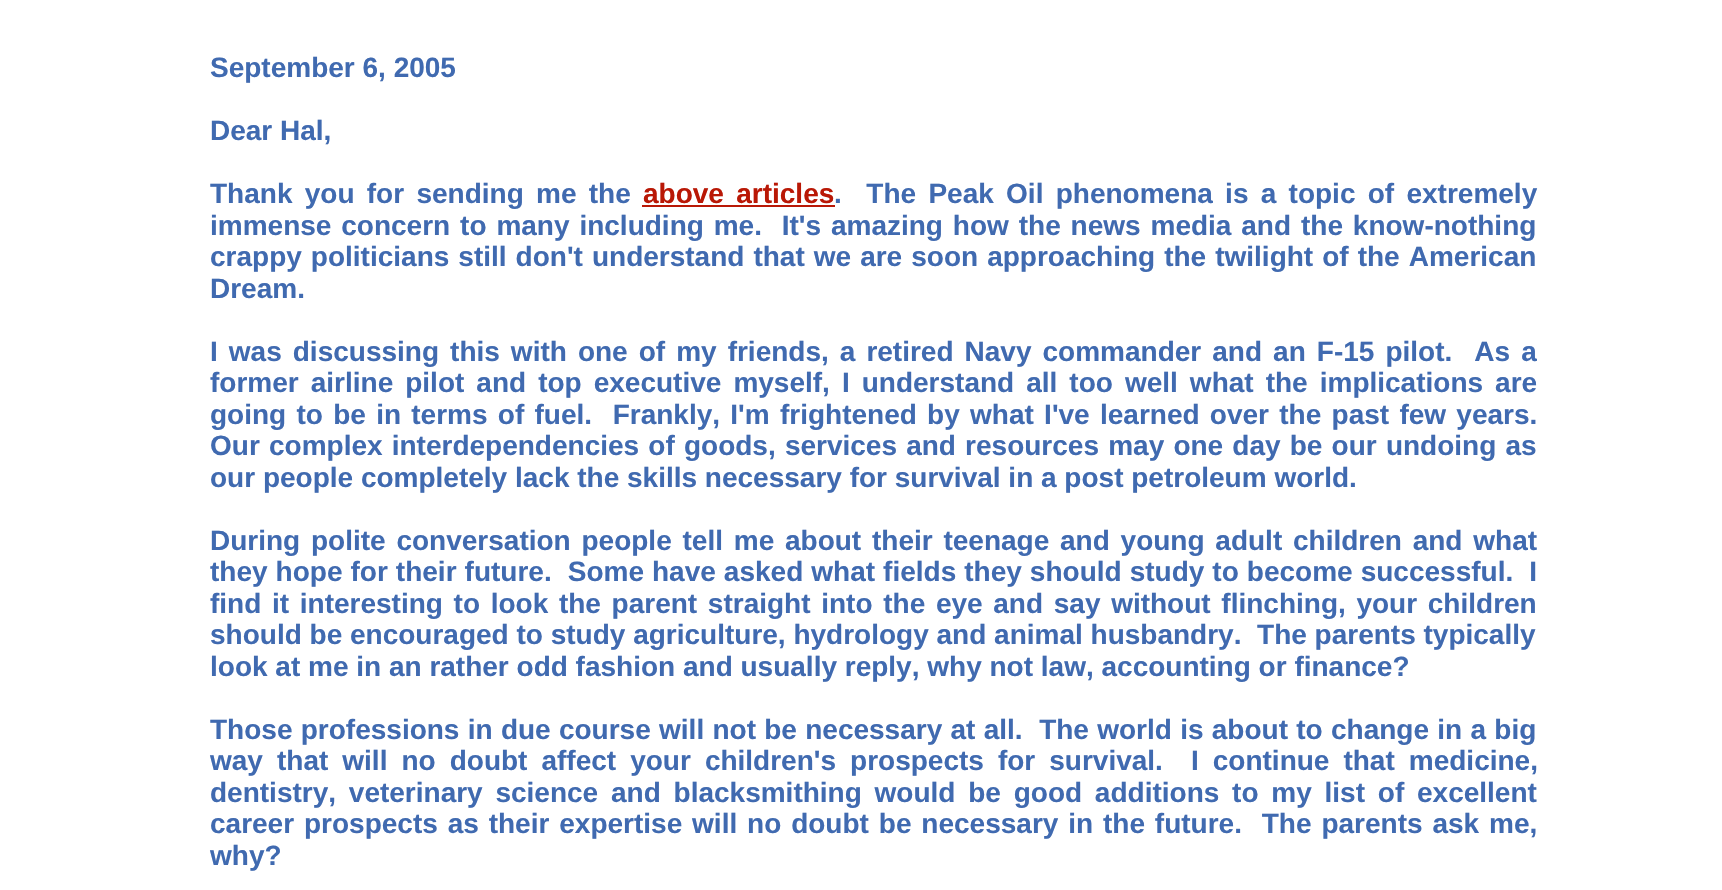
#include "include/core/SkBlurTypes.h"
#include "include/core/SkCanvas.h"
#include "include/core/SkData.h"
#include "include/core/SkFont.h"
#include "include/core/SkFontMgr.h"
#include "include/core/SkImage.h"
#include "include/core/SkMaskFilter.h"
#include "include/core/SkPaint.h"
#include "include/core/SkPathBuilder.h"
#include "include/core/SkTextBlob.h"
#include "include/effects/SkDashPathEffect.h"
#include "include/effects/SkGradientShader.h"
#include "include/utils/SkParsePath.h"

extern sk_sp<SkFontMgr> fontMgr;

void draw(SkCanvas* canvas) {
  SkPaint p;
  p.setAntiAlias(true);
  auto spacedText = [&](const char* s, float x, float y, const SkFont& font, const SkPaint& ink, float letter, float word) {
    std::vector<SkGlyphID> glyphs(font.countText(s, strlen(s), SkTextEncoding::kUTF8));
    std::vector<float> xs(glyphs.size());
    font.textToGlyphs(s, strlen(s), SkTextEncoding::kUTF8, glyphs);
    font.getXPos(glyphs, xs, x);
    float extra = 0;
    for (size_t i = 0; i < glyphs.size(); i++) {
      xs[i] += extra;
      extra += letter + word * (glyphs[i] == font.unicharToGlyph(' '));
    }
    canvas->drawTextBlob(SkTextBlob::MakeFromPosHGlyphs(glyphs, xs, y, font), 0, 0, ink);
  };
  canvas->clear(SK_ColorWHITE);
  p.setColor(SkColorSetRGB(185, 24, 6));
  canvas->drawRect(SkRect::MakeLTRB(642, 205, 835, 207), p);
  SkFont font1(fontMgr->matchFamilyStyle("Liberation Sans", SkFontStyle::Bold()), 28);
  font1.setSubpixel(true);
  p.setColor(SkColorSetRGB(64, 106, 176));
  canvas->drawString("September 6, 2005", 210, 77, font1, p);
  canvas->drawString("Dear Hal,", 210, 140, font1, p);
  spacedText("Thank you for sending me the", 210, 203, font1, p, 0, 4.5f);
  p.setColor(SkColorSetRGB(185, 24, 6));
  spacedText("above articles", 643, 203, font1, p, 0, 4.5f);
  p.setColor(SkColorSetRGB(64, 106, 176));
  spacedText(".  The Peak Oil phenomena is a topic of extremely", 834, 203, font1, p, 0, 4.5f);
  spacedText("immense concern to many including me.  It's amazing how the news media and the know-nothing", 210, 235, font1, p, 0, 2.1f);
  spacedText("crappy politicians still don't understand that we are soon approaching the twilight of the American", 210, 266, font1, p, 0, 1.25f);
  canvas->drawString("Dream.", 210, 298, font1, p);
  spacedText("I was discussing this with one of my friends, a retired Navy commander and an F-15 pilot.  As a", 210, 361, font1, p, 0, 3.25f);
  spacedText("former airline pilot and top executive myself, I understand all too well what the implications are", 210, 392, font1, p, 0, 4.25f);
  spacedText("going to be in terms of fuel.  Frankly, I'm frightened by what I've learned over the past few years.", 210, 424, font1, p, 0, 2.5f);
  spacedText("Our complex interdependencies of goods, services and resources may one day be our undoing as", 210, 455, font1, p, 0, 1.4f);
  canvas->drawString("our people completely lack the skills necessary for survival in a post petroleum world.", 210, 487, font1, p);
  spacedText("During polite conversation people tell me about their teenage and young adult children and what", 210, 550, font1, p, 0, 3);
  spacedText("they hope for their future.  Some have asked what fields they should study to become successful.  I", 210, 581, font1, p, 0, 0.25f);
  spacedText("find it interesting to look the parent straight into the eye and say without flinching, your children", 210, 613, font1, p, 0, 2.9f);
  canvas->drawString("should be encouraged to study agriculture, hydrology and animal husbandry.  The parents typically", 210, 644, font1, p);
  canvas->drawString("look at me in an rather odd fashion and usually reply, why not law, accounting or finance?", 210, 676, font1, p);
  spacedText("Those professions in due course will not be necessary at all.  The world is about to change in a big", 210, 739, font1, p, 0, 0.5f);
  spacedText("way that will no doubt affect your children's prospects for survival.  I continue that medicine,", 210, 770, font1, p, 0, 6.25f);
  spacedText("dentistry, veterinary science and blacksmithing would be good additions to my list of excellent", 210, 802, font1, p, 0, 5);
  spacedText("career prospects as their expertise will no doubt be necessary in the future.  The parents ask me,", 210, 833, font1, p, 0, 2.1f);
  canvas->drawString("why?", 210, 865, font1, p);
}
